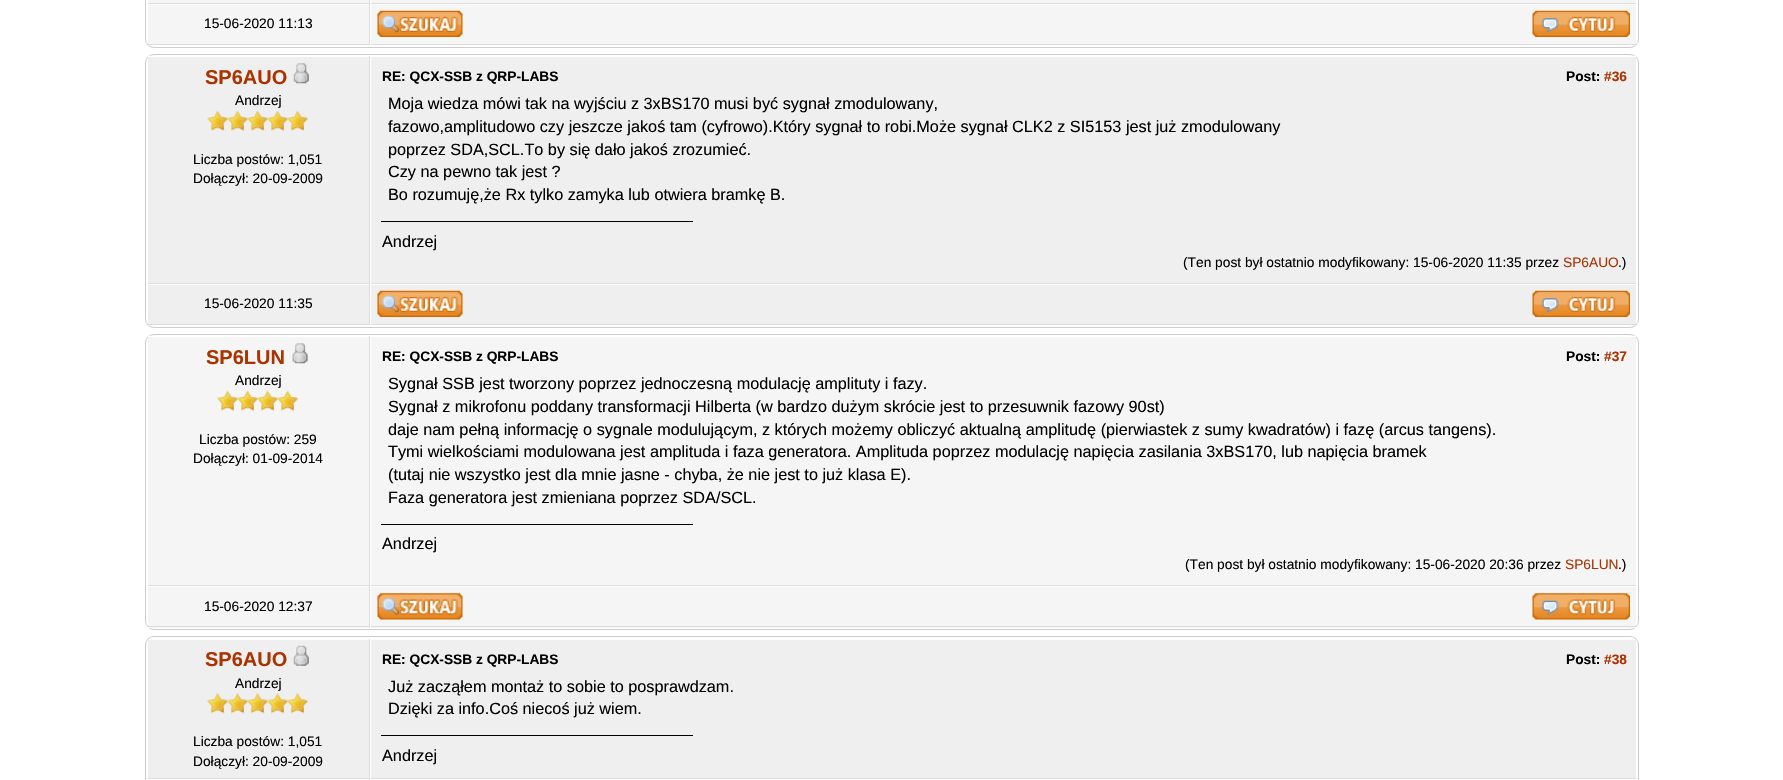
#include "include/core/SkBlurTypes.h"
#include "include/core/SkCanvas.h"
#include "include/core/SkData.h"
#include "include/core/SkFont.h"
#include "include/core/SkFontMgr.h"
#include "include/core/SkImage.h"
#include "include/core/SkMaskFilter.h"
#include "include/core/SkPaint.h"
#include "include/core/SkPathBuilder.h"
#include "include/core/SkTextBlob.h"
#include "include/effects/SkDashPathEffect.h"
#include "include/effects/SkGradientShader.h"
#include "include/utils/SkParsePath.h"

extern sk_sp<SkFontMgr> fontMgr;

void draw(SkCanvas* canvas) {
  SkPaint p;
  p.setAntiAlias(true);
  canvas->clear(SK_ColorWHITE);
  p.setStyle(SkPaint::kStroke_Style);
  p.setStrokeWidth(1);
  p.setColor(SkColorSetRGB(204, 204, 204));
  canvas->drawRoundRect(SkRect::MakeLTRB(145.5f, -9.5f, 1638.5f, 47.5f), 8.5f, 8.5f, p);
  p.setStyle(SkPaint::kFill_Style);
  p.setColor(SkColorSetRGB(245, 245, 245));
  canvas->drawRect(SkRect::MakeLTRB(148, 0, 1636, 3), p);
  p.setColor(SkColorSetRGB(221, 221, 221));
  canvas->drawRect(SkRect::MakeLTRB(369, 0, 370, 45), p);
  canvas->drawRect(SkRect::MakeLTRB(148, 3, 1636, 4), p);
  p.setColor(SK_ColorWHITE);
  canvas->drawRect(SkRect::MakeLTRB(370, 0, 371, 4), p);
  p.setColor(SkColorSetRGB(245, 245, 245));
  canvas->drawRect(SkRect::MakeLTRB(148, 5, 369, 44), p);
  p.setColor(SkColorSetRGB(221, 221, 221));
  canvas->drawRect(SkRect::MakeLTRB(148, 44, 1636, 45), p);
  p.setColor(SkColorSetRGB(245, 245, 245));
  canvas->drawRect(SkRect::MakeLTRB(371, 5, 1636, 44), p);
  p.setColor(SK_ColorWHITE);
  canvas->drawRect(SkRect::MakeLTRB(370, 44, 371, 45), p);
  canvas->drawImageRect(SkImages::DeferredFromEncodedData(SkData::MakeFromFileName("images/1.png")), SkRect::MakeLTRB(377, 10, 463, 37), SkSamplingOptions());
  canvas->drawImageRect(SkImages::DeferredFromEncodedData(SkData::MakeFromFileName("images/2.png")), SkRect::MakeLTRB(1532, 10, 1630, 37), SkSamplingOptions());
  p.setStyle(SkPaint::kStroke_Style);
  p.setColor(SkColorSetRGB(204, 204, 204));
  canvas->drawRoundRect(SkRect::MakeLTRB(145.5f, 54.5f, 1638.5f, 327.5f), 8.5f, 8.5f, p);
  p.setStyle(SkPaint::kFill_Style);
  p.setColor(SkColorSetRGB(239, 239, 239));
  canvas->drawRect(SkRect::MakeLTRB(148, 57, 369, 283), p);
  p.setColor(SK_ColorWHITE);
  canvas->drawRect(SkRect::MakeLTRB(148, 56, 150, 57), p);
  p.setColor(SkColorSetRGB(221, 221, 221));
  canvas->drawRect(SkRect::MakeLTRB(369, 56, 370, 325), p);
  canvas->drawRect(SkRect::MakeLTRB(148, 283, 1636, 284), p);
  canvas->drawImageRect(SkImages::DeferredFromEncodedData(SkData::MakeFromFileName("images/3.png")), SkRect::MakeLTRB(293, 63, 309, 84), SkSamplingOptions());
  canvas->drawImageRect(SkImages::DeferredFromEncodedData(SkData::MakeFromFileName("images/4.png")), SkRect::MakeLTRB(207, 110, 228, 131), SkSamplingOptions());
  canvas->drawImageRect(SkImages::DeferredFromEncodedData(SkData::MakeFromFileName("images/5.png")), SkRect::MakeLTRB(227, 110, 248, 131), SkSamplingOptions());
  canvas->drawImageRect(SkImages::DeferredFromEncodedData(SkData::MakeFromFileName("images/5.png")), SkRect::MakeLTRB(247, 110, 268, 131), SkSamplingOptions());
  canvas->drawImageRect(SkImages::DeferredFromEncodedData(SkData::MakeFromFileName("images/5.png")), SkRect::MakeLTRB(267, 110, 288, 131), SkSamplingOptions());
  canvas->drawImageRect(SkImages::DeferredFromEncodedData(SkData::MakeFromFileName("images/6.png")), SkRect::MakeLTRB(287, 110, 308, 131), SkSamplingOptions());
  p.setColor(SkColorSetRGB(239, 239, 239));
  canvas->drawRect(SkRect::MakeLTRB(371, 57, 1636, 283), p);
  p.setColor(SK_ColorWHITE);
  canvas->drawRect(SkRect::MakeLTRB(1634, 56, 1636, 57), p);
  canvas->drawRect(SkRect::MakeLTRB(370, 283, 371, 284), p);
  p.setColor(SK_ColorBLACK);
  canvas->drawRect(SkRect::MakeLTRB(381, 221, 693, 222), p);
  p.setColor(SkColorSetRGB(239, 239, 239));
  canvas->drawRect(SkRect::MakeLTRB(148, 285, 369, 324), p);
  p.setColor(SkColorSetRGB(221, 221, 221));
  canvas->drawRect(SkRect::MakeLTRB(148, 324, 1636, 325), p);
  p.setColor(SkColorSetRGB(239, 239, 239));
  canvas->drawRect(SkRect::MakeLTRB(371, 285, 1636, 324), p);
  p.setColor(SK_ColorWHITE);
  canvas->drawRect(SkRect::MakeLTRB(370, 324, 371, 325), p);
  canvas->drawImageRect(SkImages::DeferredFromEncodedData(SkData::MakeFromFileName("images/7.png")), SkRect::MakeLTRB(377, 290, 463, 317), SkSamplingOptions());
  canvas->drawImageRect(SkImages::DeferredFromEncodedData(SkData::MakeFromFileName("images/8.png")), SkRect::MakeLTRB(1532, 290, 1630, 317), SkSamplingOptions());
  p.setStyle(SkPaint::kStroke_Style);
  p.setColor(SkColorSetRGB(204, 204, 204));
  canvas->drawRoundRect(SkRect::MakeLTRB(145.5f, 334.5f, 1638.5f, 629.5f), 8.5f, 8.5f, p);
  p.setStyle(SkPaint::kFill_Style);
  p.setColor(SkColorSetRGB(245, 245, 245));
  canvas->drawRect(SkRect::MakeLTRB(148, 337, 369, 585), p);
  p.setColor(SK_ColorWHITE);
  canvas->drawRect(SkRect::MakeLTRB(148, 336, 150, 337), p);
  p.setColor(SkColorSetRGB(221, 221, 221));
  canvas->drawRect(SkRect::MakeLTRB(369, 336, 370, 628), p);
  canvas->drawRect(SkRect::MakeLTRB(148, 585, 1636, 586), p);
  canvas->drawImageRect(SkImages::DeferredFromEncodedData(SkData::MakeFromFileName("images/9.png")), SkRect::MakeLTRB(292, 343, 308, 364), SkSamplingOptions());
  canvas->drawImageRect(SkImages::DeferredFromEncodedData(SkData::MakeFromFileName("images/10.png")), SkRect::MakeLTRB(217, 390, 238, 411), SkSamplingOptions());
  canvas->drawImageRect(SkImages::DeferredFromEncodedData(SkData::MakeFromFileName("images/11.png")), SkRect::MakeLTRB(237, 390, 258, 411), SkSamplingOptions());
  canvas->drawImageRect(SkImages::DeferredFromEncodedData(SkData::MakeFromFileName("images/11.png")), SkRect::MakeLTRB(257, 390, 278, 411), SkSamplingOptions());
  canvas->drawImageRect(SkImages::DeferredFromEncodedData(SkData::MakeFromFileName("images/12.png")), SkRect::MakeLTRB(277, 390, 298, 411), SkSamplingOptions());
  p.setColor(SkColorSetRGB(245, 245, 245));
  canvas->drawRect(SkRect::MakeLTRB(371, 337, 1636, 585), p);
  p.setColor(SK_ColorWHITE);
  canvas->drawRect(SkRect::MakeLTRB(1634, 336, 1636, 337), p);
  canvas->drawRect(SkRect::MakeLTRB(370, 585, 371, 586), p);
  p.setColor(SK_ColorBLACK);
  canvas->drawRect(SkRect::MakeLTRB(381, 524, 693, 525), p);
  p.setColor(SkColorSetRGB(245, 245, 245));
  canvas->drawRect(SkRect::MakeLTRB(148, 587, 369, 628), p);
  p.setColor(SkColorSetRGB(221, 221, 221));
  canvas->drawRect(SkRect::MakeLTRB(148, 626, 370, 627), p);
  p.setColor(SkColorSetRGB(245, 245, 245));
  canvas->drawRect(SkRect::MakeLTRB(371, 587, 1636, 628), p);
  p.setColor(SkColorSetRGB(221, 221, 221));
  canvas->drawRect(SkRect::MakeLTRB(370, 626, 1636, 627), p);
  p.setColor(SK_ColorWHITE);
  canvas->drawRect(SkRect::MakeLTRB(370, 626, 371, 628), p);
  canvas->drawImageRect(SkImages::DeferredFromEncodedData(SkData::MakeFromFileName("images/13.png")), SkRect::MakeLTRB(377, 593, 463, 620), SkSamplingOptions());
  canvas->drawImageRect(SkImages::DeferredFromEncodedData(SkData::MakeFromFileName("images/14.png")), SkRect::MakeLTRB(1532, 593, 1630, 620), SkSamplingOptions());
  p.setStyle(SkPaint::kStroke_Style);
  p.setColor(SkColorSetRGB(204, 204, 204));
  canvas->drawRoundRect(SkRect::MakeLTRB(145.5f, 636.5f, 1638.5f, 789.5f), 8.5f, 8.5f, p);
  p.setStyle(SkPaint::kFill_Style);
  p.setColor(SkColorSetRGB(239, 239, 239));
  canvas->drawRect(SkRect::MakeLTRB(148, 640, 369, 778), p);
  p.setColor(SK_ColorWHITE);
  canvas->drawRect(SkRect::MakeLTRB(148, 639, 149, 640), p);
  p.setColor(SkColorSetRGB(221, 221, 221));
  canvas->drawRect(SkRect::MakeLTRB(369, 639, 370, 780), p);
  canvas->drawRect(SkRect::MakeLTRB(148, 778, 1636, 779), p);
  canvas->drawImageRect(SkImages::DeferredFromEncodedData(SkData::MakeFromFileName("images/15.png")), SkRect::MakeLTRB(293, 645, 309, 666), SkSamplingOptions());
  canvas->drawImageRect(SkImages::DeferredFromEncodedData(SkData::MakeFromFileName("images/16.png")), SkRect::MakeLTRB(207, 693, 228, 714), SkSamplingOptions());
  canvas->drawImageRect(SkImages::DeferredFromEncodedData(SkData::MakeFromFileName("images/17.png")), SkRect::MakeLTRB(227, 693, 248, 714), SkSamplingOptions());
  canvas->drawImageRect(SkImages::DeferredFromEncodedData(SkData::MakeFromFileName("images/17.png")), SkRect::MakeLTRB(247, 693, 268, 714), SkSamplingOptions());
  canvas->drawImageRect(SkImages::DeferredFromEncodedData(SkData::MakeFromFileName("images/17.png")), SkRect::MakeLTRB(267, 693, 288, 714), SkSamplingOptions());
  canvas->drawImageRect(SkImages::DeferredFromEncodedData(SkData::MakeFromFileName("images/18.png")), SkRect::MakeLTRB(287, 693, 308, 714), SkSamplingOptions());
  p.setColor(SkColorSetRGB(239, 239, 239));
  canvas->drawRect(SkRect::MakeLTRB(371, 640, 1636, 778), p);
  p.setColor(SK_ColorWHITE);
  canvas->drawRect(SkRect::MakeLTRB(1635, 639, 1636, 640), p);
  canvas->drawRect(SkRect::MakeLTRB(370, 778, 371, 779), p);
  p.setColor(SK_ColorBLACK);
  canvas->drawRect(SkRect::MakeLTRB(381, 735, 693, 736), p);
  SkFont font1(fontMgr->matchFamilyStyle("Liberation Sans", SkFontStyle::Normal()), 13.75f);
  font1.setSubpixel(true);
  canvas->drawString("15-06-2020 11:13", 204, 28, font1, p);
  SkFont font2(fontMgr->matchFamilyStyle("Liberation Sans", SkFontStyle::Bold()), 20);
  font2.setSubpixel(true);
  p.setColor(SkColorSetRGB(170, 51, 0));
  canvas->drawString("SP6AUO", 205, 84, font2, p);
  p.setColor(SK_ColorBLACK);
  canvas->drawString("Andrzej", 235, 105, font1, p);
  canvas->drawString("Liczba postów: 1,051", 193, 164, font1, p);
  canvas->drawString("Dołączył: 20-09-2009", 193, 183, font1, p);
  SkFont font3(fontMgr->matchFamilyStyle("Liberation Sans", SkFontStyle::Bold()), 13.75f);
  font3.setSubpixel(true);
  canvas->drawString("RE: QCX-SSB z QRP-LABS", 382, 81, font3, p);
  canvas->drawString("Post:", 1566, 81, font3, p);
  p.setColor(SkColorSetRGB(170, 51, 0));
  canvas->drawString("#36", 1604, 81, font3, p);
  SkFont font4(fontMgr->matchFamilyStyle("Liberation Sans", SkFontStyle::Normal()), 16.25f);
  font4.setSubpixel(true);
  p.setColor(SK_ColorBLACK);
  canvas->drawString("Moja wiedza mówi tak na wyjściu z 3xBS170 musi być sygnał zmodulowany,", 388, 109, font4, p);
  canvas->drawString("fazowo,amplitudowo czy jeszcze jakoś tam (cyfrowo).Który sygnał to robi.Może sygnał CLK2 z SI5153 jest już zmodulowany", 388, 132, font4, p);
  canvas->drawString("poprzez SDA,SCL.To by się dało jakoś zrozumieć.", 388, 155, font4, p);
  canvas->drawString("Czy na pewno tak jest ?", 388, 177, font4, p);
  canvas->drawString("Bo rozumuję,że Rx tylko zamyka lub otwiera bramkę B.", 388, 200, font4, p);
  canvas->drawString("Andrzej", 382, 247, font4, p);
  canvas->drawString("(Ten post był ostatnio modyfikowany: 15-06-2020 11:35 przez", 1183, 267, font1, p);
  p.setColor(SkColorSetRGB(170, 51, 0));
  canvas->drawString("SP6AUO", 1563, 267, font1, p);
  p.setColor(SK_ColorBLACK);
  canvas->drawString(".)", 1618, 267, font1, p);
  canvas->drawString("15-06-2020 11:35", 204, 308, font1, p);
  p.setColor(SkColorSetRGB(170, 51, 0));
  canvas->drawString("SP6LUN", 206, 364, font2, p);
  p.setColor(SK_ColorBLACK);
  canvas->drawString("Andrzej", 235, 385, font1, p);
  canvas->drawString("Liczba postów: 259", 199, 444, font1, p);
  canvas->drawString("Dołączył: 01-09-2014", 193, 463, font1, p);
  canvas->drawString("RE: QCX-SSB z QRP-LABS", 382, 361, font3, p);
  canvas->drawString("Post:", 1566, 361, font3, p);
  p.setColor(SkColorSetRGB(170, 51, 0));
  canvas->drawString("#37", 1604, 361, font3, p);
  p.setColor(SK_ColorBLACK);
  canvas->drawString("Sygnał SSB jest tworzony poprzez jednoczesną modulację amplituty i fazy.", 388, 389, font4, p);
  canvas->drawString("Sygnał z mikrofonu poddany transformacji Hilberta (w bardzo dużym skrócie jest to przesuwnik fazowy 90st)", 388, 412, font4, p);
  canvas->drawString("daje nam pełną informację o sygnale modulującym, z których możemy obliczyć aktualną amplitudę (pierwiastek z sumy kwadratów) i fazę (arcus tangens).", 388, 435, font4, p);
  canvas->drawString("Tymi wielkościami modulowana jest amplituda i faza generatora. Amplituda poprzez modulację napięcia zasilania 3xBS170, lub napięcia bramek", 388, 457, font4, p);
  canvas->drawString("(tutaj nie wszystko jest dla mnie jasne - chyba, że nie jest to już klasa E).", 388, 480, font4, p);
  canvas->drawString("Faza generatora jest zmieniana poprzez SDA/SCL.", 388, 503, font4, p);
  canvas->drawString("Andrzej", 382, 549, font4, p);
  canvas->drawString("(Ten post był ostatnio modyfikowany: 15-06-2020 20:36 przez", 1185, 569, font1, p);
  p.setColor(SkColorSetRGB(170, 51, 0));
  canvas->drawString("SP6LUN", 1565, 569, font1, p);
  p.setColor(SK_ColorBLACK);
  canvas->drawString(".)", 1618, 569, font1, p);
  canvas->drawString("15-06-2020 12:37", 204, 611, font1, p);
  p.setColor(SkColorSetRGB(170, 51, 0));
  canvas->drawString("SP6AUO", 205, 666, font2, p);
  p.setColor(SK_ColorBLACK);
  canvas->drawString("Andrzej", 235, 688, font1, p);
  canvas->drawString("Liczba postów: 1,051", 193, 746, font1, p);
  canvas->drawString("Dołączył: 20-09-2009", 193, 766, font1, p);
  canvas->drawString("RE: QCX-SSB z QRP-LABS", 382, 664, font3, p);
  canvas->drawString("Post:", 1566, 664, font3, p);
  p.setColor(SkColorSetRGB(170, 51, 0));
  canvas->drawString("#38", 1604, 664, font3, p);
  p.setColor(SK_ColorBLACK);
  canvas->drawString("Już zacząłem montaż to sobie to posprawdzam.", 388, 692, font4, p);
  canvas->drawString("Dzięki za info.Coś niecoś już wiem.", 388, 714, font4, p);
  canvas->drawString("Andrzej", 382, 761, font4, p);
}
